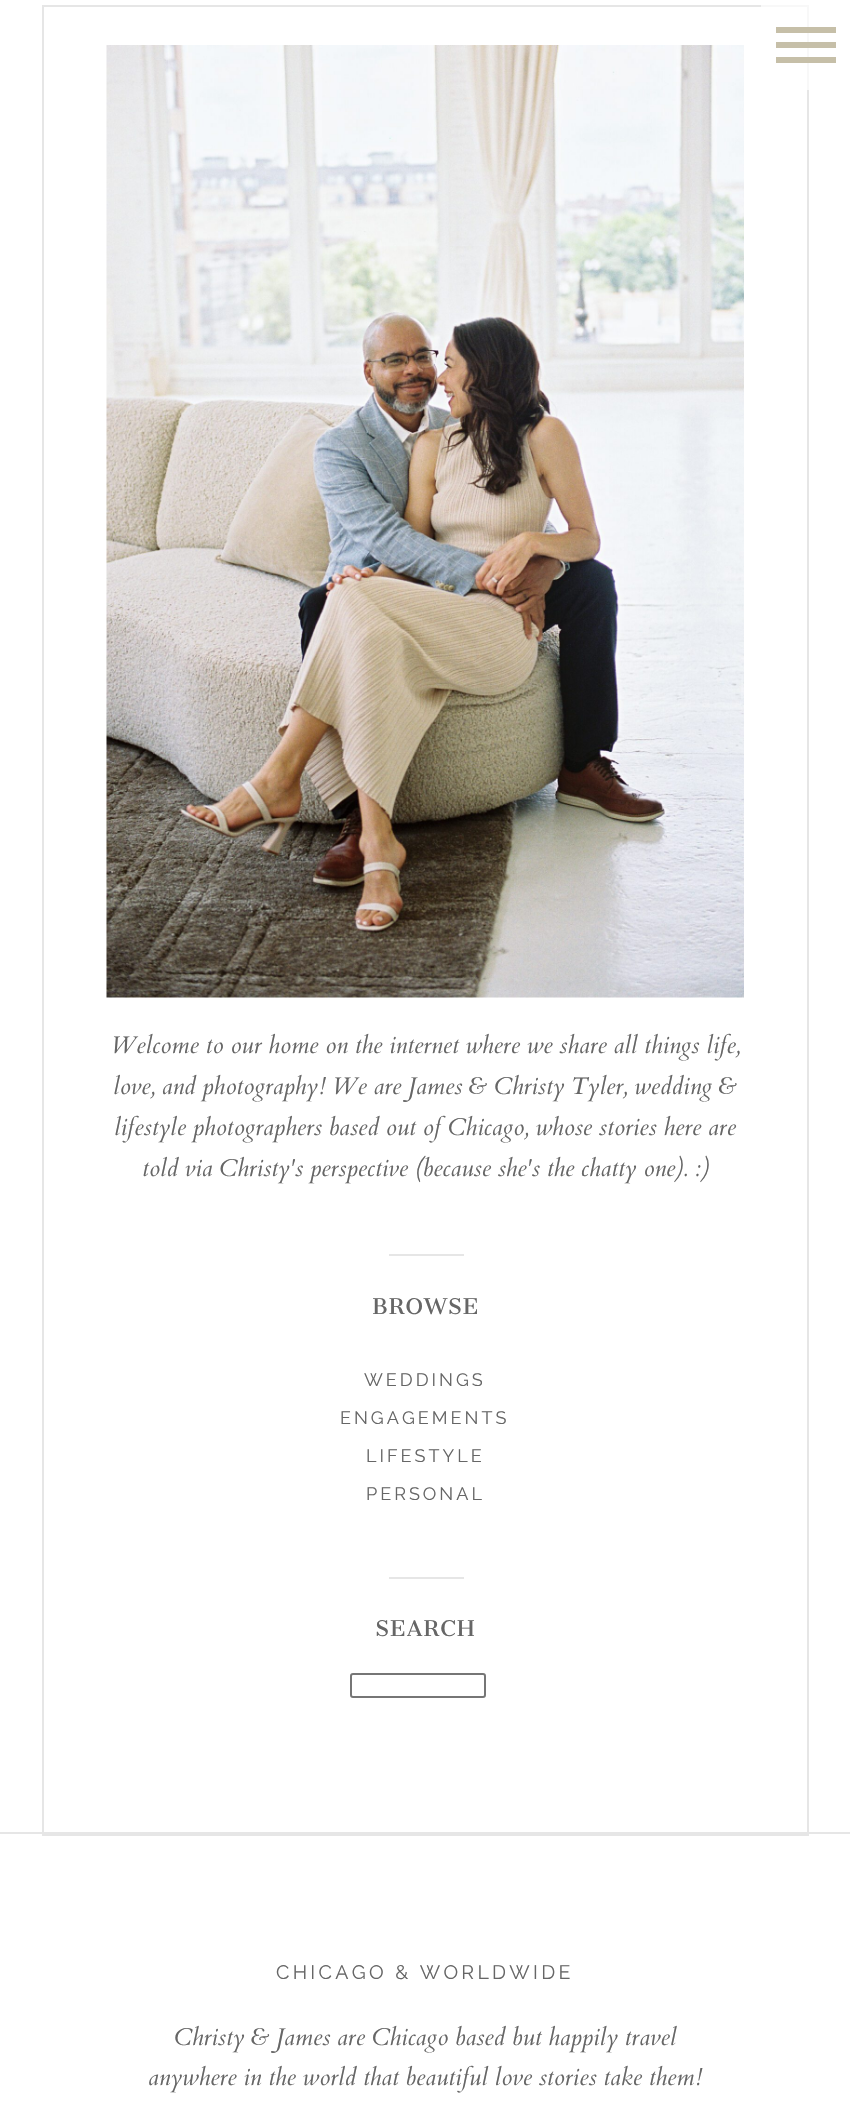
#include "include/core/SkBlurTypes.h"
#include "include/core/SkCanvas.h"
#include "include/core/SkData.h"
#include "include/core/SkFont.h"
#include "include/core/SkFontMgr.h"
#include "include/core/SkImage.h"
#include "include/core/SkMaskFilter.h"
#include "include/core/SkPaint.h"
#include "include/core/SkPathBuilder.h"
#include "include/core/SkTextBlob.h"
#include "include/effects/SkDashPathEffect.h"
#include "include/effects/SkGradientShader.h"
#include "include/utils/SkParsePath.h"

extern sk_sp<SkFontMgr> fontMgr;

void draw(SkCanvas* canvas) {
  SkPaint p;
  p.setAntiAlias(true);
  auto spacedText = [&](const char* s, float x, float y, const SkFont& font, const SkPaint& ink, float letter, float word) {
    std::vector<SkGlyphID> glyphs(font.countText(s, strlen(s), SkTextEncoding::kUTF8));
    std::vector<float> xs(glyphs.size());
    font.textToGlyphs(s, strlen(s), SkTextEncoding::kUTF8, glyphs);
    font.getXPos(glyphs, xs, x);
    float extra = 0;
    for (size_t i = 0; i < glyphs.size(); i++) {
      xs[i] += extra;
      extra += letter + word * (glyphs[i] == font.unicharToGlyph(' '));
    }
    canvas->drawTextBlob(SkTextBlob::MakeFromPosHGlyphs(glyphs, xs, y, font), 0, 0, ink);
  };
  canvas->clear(SK_ColorWHITE);
  p.setStyle(SkPaint::kStroke_Style);
  p.setStrokeWidth(2);
  p.setColor(SkColorSetRGB(230, 230, 230));
  canvas->drawRect(SkRect::MakeLTRB(43, 6, 808, 1835), p);
  p.setStyle(SkPaint::kFill_Style);
  p.setColor(SkColorSetARGB(181, 255, 255, 255));
  canvas->drawRect(SkRect::MakeLTRB(761, 5, 809, 90), p);
  p.setColor(SkColorSetRGB(198, 191, 168));
  canvas->drawRect(SkRect::MakeLTRB(776, 27, 836, 33), p);
  canvas->drawRect(SkRect::MakeLTRB(776, 42, 836, 48), p);
  canvas->drawRect(SkRect::MakeLTRB(776, 57, 836, 63), p);
  canvas->drawImageRect(SkImages::DeferredFromEncodedData(SkData::MakeFromFileName("images/1.png")), SkRect::MakeLTRB(106, 45, 744, 998), SkSamplingOptions());
  p.setColor(SkColorSetRGB(230, 230, 230));
  canvas->drawRect(SkRect::MakeLTRB(389, 1254, 464, 1256), p);
  canvas->drawRect(SkRect::MakeLTRB(389, 1577, 464, 1579), p);
  p.setStyle(SkPaint::kStroke_Style);
  p.setColor(SkColorSetRGB(118, 118, 118));
  canvas->drawRoundRect(SkRect::MakeLTRB(351, 1674, 485, 1697), 2, 2, p);
  p.setStyle(SkPaint::kFill_Style);
  p.setColor(SkColorSetRGB(230, 230, 230));
  canvas->drawRect(SkRect::MakeLTRB(0, 1832, 850, 1834), p);
  SkFont font1(fontMgr->matchFamilyStyle("Cardo", SkFontStyle::Italic()), 24);
  font1.setSubpixel(true);
  p.setColor(SkColorSetRGB(102, 102, 102));
  canvas->drawString("Welcome to our home on the internet where we share all things life,", 111, 1053, font1, p);
  canvas->drawString("love, and photography! We are James & Christy Tyler, wedding &", 113, 1094, font1, p);
  canvas->drawString("lifestyle photographers based out of Chicago, whose stories here are", 114, 1135, font1, p);
  canvas->drawString("told via Christy's perspective (because she's the chatty one). :)", 142, 1176, font1, p);
  SkFont font2(fontMgr->matchFamilyStyle("Cantata One", SkFontStyle::Normal()), 21);
  font2.setSubpixel(true);
  spacedText("BROWSE", 372, 1314, font2, p, 1, 0);
  SkFont font3(fontMgr->matchFamilyStyle("Raleway", SkFontStyle(100, SkFontStyle::kNormal_Width, SkFontStyle::kUpright_Slant)), 18);
  font3.setSubpixel(true);
  spacedText("WEDDINGS", 364, 1386, font3, p, 3, 0);
  spacedText("ENGAGEMENTS", 340, 1424, font3, p, 3, 0);
  spacedText("LIFESTYLE", 366, 1462, font3, p, 3, 0);
  spacedText("PERSONAL", 366, 1500, font3, p, 3, 0);
  spacedText("SEARCH", 375, 1636, font2, p, 1, 0);
  SkFont font4(fontMgr->matchFamilyStyle("Raleway", SkFontStyle(100, SkFontStyle::kNormal_Width, SkFontStyle::kUpright_Slant)), 19.5f);
  font4.setSubpixel(true);
  spacedText("CHICAGO & WORLDWIDE", 276, 1979, font4, p, 3.3f, 0);
  canvas->drawString("Christy & James are Chicago based but happily travel", 174, 2045, font1, p);
  canvas->drawString("anywhere in the world that beautiful love stories take them!", 148, 2085, font1, p);
}
